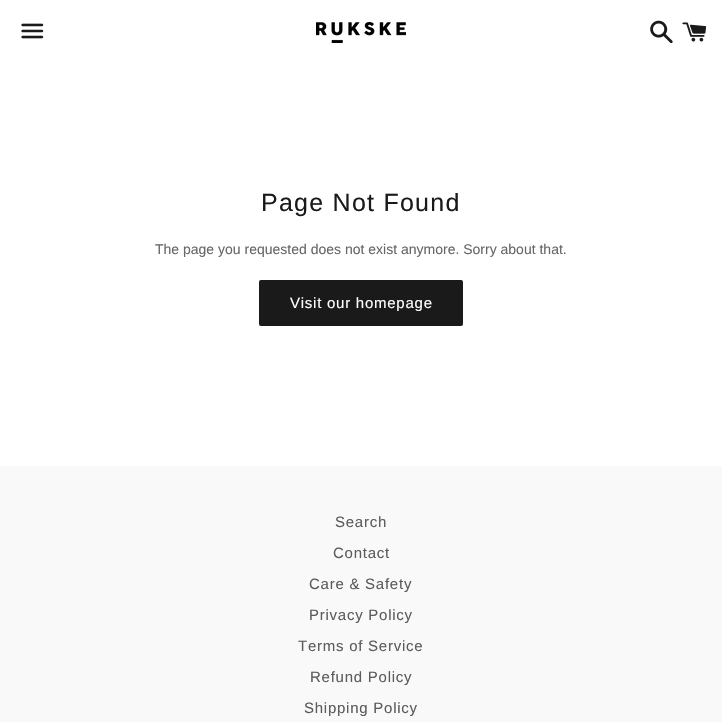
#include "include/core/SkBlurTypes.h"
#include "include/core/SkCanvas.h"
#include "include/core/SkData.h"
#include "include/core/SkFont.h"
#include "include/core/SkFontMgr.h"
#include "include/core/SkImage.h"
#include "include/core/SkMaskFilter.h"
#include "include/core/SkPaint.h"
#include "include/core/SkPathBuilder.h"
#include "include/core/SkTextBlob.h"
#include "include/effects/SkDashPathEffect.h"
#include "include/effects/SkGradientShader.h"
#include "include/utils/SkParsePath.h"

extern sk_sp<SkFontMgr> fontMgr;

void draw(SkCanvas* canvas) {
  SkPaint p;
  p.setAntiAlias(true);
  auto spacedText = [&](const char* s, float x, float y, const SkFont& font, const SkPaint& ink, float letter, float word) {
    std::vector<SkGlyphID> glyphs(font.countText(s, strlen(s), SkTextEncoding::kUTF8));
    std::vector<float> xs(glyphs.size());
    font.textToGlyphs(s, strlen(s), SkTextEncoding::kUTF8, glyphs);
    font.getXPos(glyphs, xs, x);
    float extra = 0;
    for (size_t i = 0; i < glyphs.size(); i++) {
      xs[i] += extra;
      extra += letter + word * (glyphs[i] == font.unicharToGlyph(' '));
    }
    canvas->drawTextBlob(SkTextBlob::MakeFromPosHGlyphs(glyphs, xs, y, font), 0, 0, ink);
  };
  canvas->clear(SK_ColorWHITE);
  canvas->drawImageRect(SkImages::DeferredFromEncodedData(SkData::MakeFromFileName("images/1.png")), SkRect::MakeLTRB(21, 23, 44, 39), SkSamplingOptions());
  canvas->drawImageRect(SkImages::DeferredFromEncodedData(SkData::MakeFromFileName("images/2.png")), SkRect::MakeLTRB(316, 22, 406, 43), SkSamplingOptions());
  canvas->drawImageRect(SkImages::DeferredFromEncodedData(SkData::MakeFromFileName("images/3.png")), SkRect::MakeLTRB(650, 20, 673, 44), SkSamplingOptions());
  canvas->drawImageRect(SkImages::DeferredFromEncodedData(SkData::MakeFromFileName("images/4.png")), SkRect::MakeLTRB(682, 22, 707, 42), SkSamplingOptions());
  p.setColor(SkColorSetRGB(26, 26, 26));
  canvas->drawRoundRect(SkRect::MakeLTRB(259, 280, 463, 326), 2, 2, p);
  p.setColor(SkColorSetRGB(249, 249, 249));
  canvas->drawRect(SkRect::MakeLTRB(0, 466, 722, 722), p);
  SkFont font1(fontMgr->matchFamilyStyle("Liberation Sans", SkFontStyle::Normal()), 25);
  font1.setSubpixel(true);
  p.setColor(SkColorSetRGB(26, 26, 26));
  spacedText("Page Not Found", 261, 211, font1, p, 1.25f, 0);
  SkFont font2(fontMgr->matchFamilyStyle("Liberation Sans", SkFontStyle::Normal()), 14);
  font2.setSubpixel(true);
  p.setColor(SkColorSetRGB(102, 102, 102));
  canvas->drawString("The page you requested does not exist anymore. Sorry about that.", 155, 254, font2, p);
  SkFont font3(fontMgr->matchFamilyStyle("Liberation Sans", SkFontStyle::Normal()), 15);
  font3.setSubpixel(true);
  p.setColor(SK_ColorWHITE);
  spacedText("Visit our homepage", 290, 308, font3, p, 0.75f, 0);
  p.setColor(SkColorSetRGB(92, 92, 92));
  spacedText("Search", 335, 527, font3, p, 0.75f, 0);
  spacedText("Contact", 333, 558, font3, p, 0.75f, 0);
  spacedText("Care & Safety", 309, 589, font3, p, 0.75f, 0);
  spacedText("Privacy Policy", 309, 620, font3, p, 0.75f, 0);
  spacedText("Terms of Service", 298, 651, font3, p, 0.75f, 0);
  spacedText("Refund Policy", 310, 682, font3, p, 0.75f, 0);
  spacedText("Shipping Policy", 304, 713, font3, p, 0.75f, 0);
}
